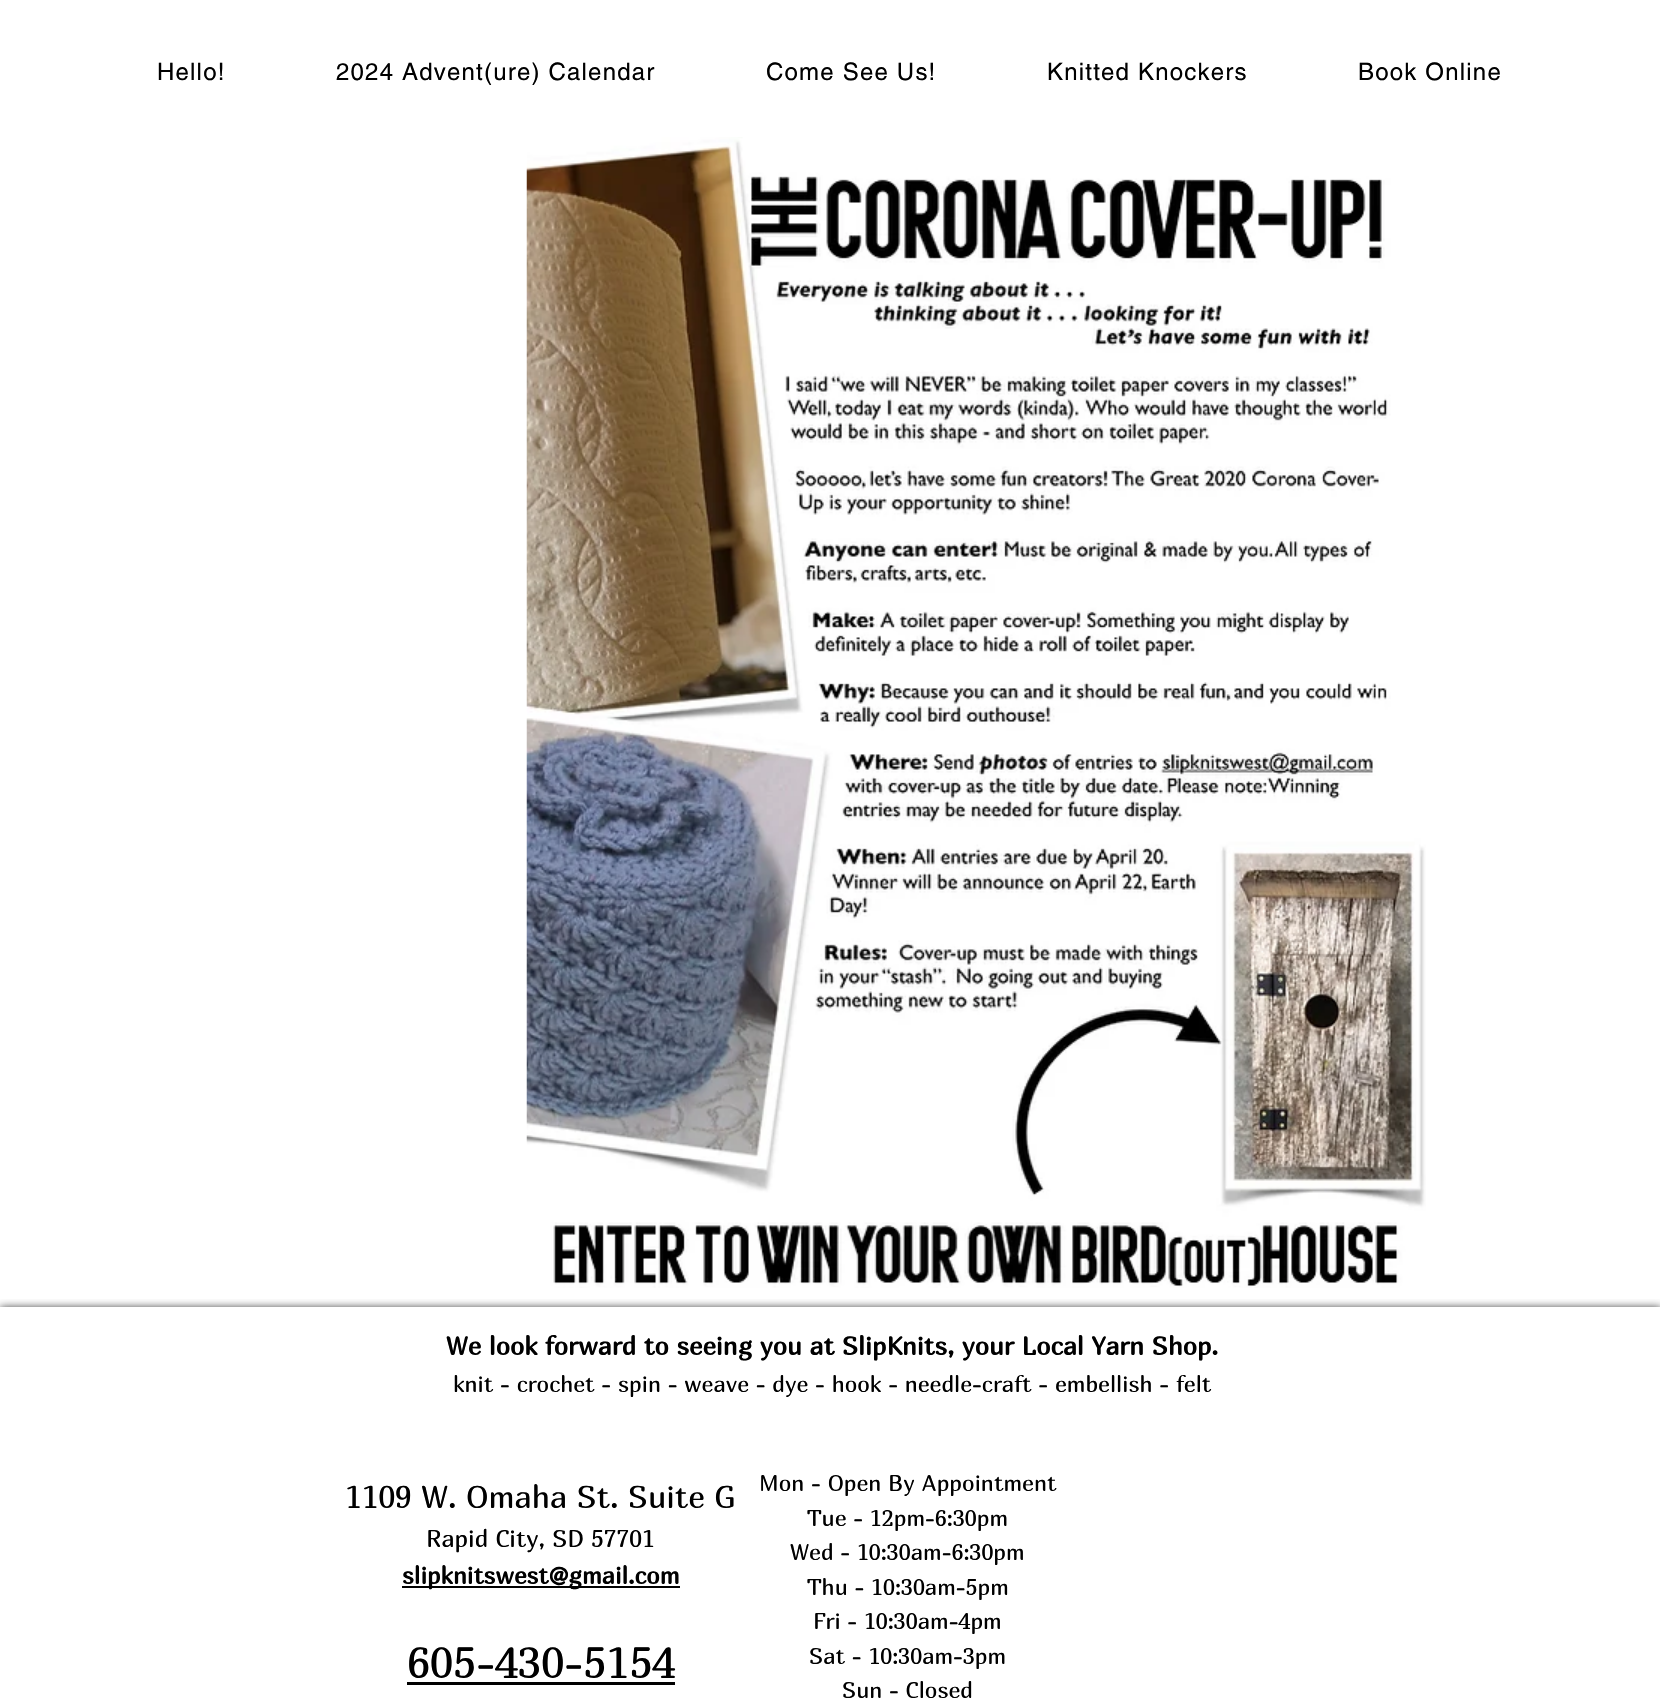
#include "include/core/SkBlurTypes.h"
#include "include/core/SkCanvas.h"
#include "include/core/SkData.h"
#include "include/core/SkFont.h"
#include "include/core/SkFontMgr.h"
#include "include/core/SkImage.h"
#include "include/core/SkMaskFilter.h"
#include "include/core/SkPaint.h"
#include "include/core/SkPathBuilder.h"
#include "include/core/SkTextBlob.h"
#include "include/effects/SkDashPathEffect.h"
#include "include/effects/SkGradientShader.h"
#include "include/utils/SkParsePath.h"

extern sk_sp<SkFontMgr> fontMgr;

void draw(SkCanvas* canvas) {
  SkPaint p;
  p.setAntiAlias(true);
  auto spacedText = [&](const char* s, float x, float y, const SkFont& font, const SkPaint& ink, float letter, float word) {
    std::vector<SkGlyphID> glyphs(font.countText(s, strlen(s), SkTextEncoding::kUTF8));
    std::vector<float> xs(glyphs.size());
    font.textToGlyphs(s, strlen(s), SkTextEncoding::kUTF8, glyphs);
    font.getXPos(glyphs, xs, x);
    float extra = 0;
    for (size_t i = 0; i < glyphs.size(); i++) {
      xs[i] += extra;
      extra += letter + word * (glyphs[i] == font.unicharToGlyph(' '));
    }
    canvas->drawTextBlob(SkTextBlob::MakeFromPosHGlyphs(glyphs, xs, y, font), 0, 0, ink);
  };
  canvas->clear(SK_ColorWHITE);
  canvas->drawImageRect(SkImages::DeferredFromEncodedData(SkData::MakeFromFileName("images/1.png")), SkRect::MakeLTRB(526, 137, 1426, 1288), SkSamplingOptions());
  canvas->save();
  canvas->clipRect(SkRect::MakeLTRB(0, 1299, 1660, 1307));
  p.setColor(SkColorSetARGB(179, 0, 0, 0));
  p.setMaskFilter(SkMaskFilter::MakeBlur(kNormal_SkBlurStyle, 4));
  canvas->drawRect(SkRect::MakeLTRB(0, 1307, 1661, 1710), p);
  p.setMaskFilter(nullptr);
  canvas->restore();
  p.setColor(SK_ColorBLACK);
  canvas->drawRect(SkRect::MakeLTRB(402, 1586, 680, 1588), p);
  canvas->drawRect(SkRect::MakeLTRB(407, 1682, 675, 1685), p);
  SkFont font1(fontMgr->matchFamilyStyle("helvetica", SkFontStyle::Normal()), 24);
  font1.setSubpixel(true);
  spacedText("Hello!", 157, 80, font1, p, 1.2f, 0);
  spacedText("2024 Advent(ure) Calendar", 336, 80, font1, p, 1.2f, 0);
  spacedText("Come See Us!", 766, 80, font1, p, 1.2f, 0);
  spacedText("Knitted Knockers", 1047, 80, font1, p, 1.2f, 0);
  spacedText("Book Online", 1358, 80, font1, p, 1.2f, 0);
  SkFont font2(fontMgr->matchFamilyStyle("Marmelad", SkFontStyle::Bold()), 25.5f);
  font2.setSubpixel(true);
  canvas->drawString("We look forward to seeing you at SlipKnits, your Local Yarn Shop.", 446, 1355, font2, p);
  SkFont font3(fontMgr->matchFamilyStyle("Marmelad", SkFontStyle::Normal()), 22.5f);
  font3.setSubpixel(true);
  canvas->drawString("knit - crochet - spin - weave - dye - hook - needle-craft - embellish - felt", 453, 1392, font3, p);
  SkFont font4(fontMgr->matchFamilyStyle("Marmelad", SkFontStyle::Normal()), 31.5f);
  font4.setSubpixel(true);
  canvas->drawString("1109 W. Omaha St. Suite G", 345, 1508, font4, p);
  SkFont font5(fontMgr->matchFamilyStyle("Marmelad", SkFontStyle::Normal()), 24);
  font5.setSubpixel(true);
  canvas->drawString("Rapid City, SD 57701", 426, 1547, font5, p);
  SkFont font6(fontMgr->matchFamilyStyle("Marmelad", SkFontStyle::Bold()), 24);
  font6.setSubpixel(true);
  canvas->drawString("slipknitswest@gmail.com", 402, 1584, font6, p);
  SkFont font7(fontMgr->matchFamilyStyle("Marmelad", SkFontStyle::Normal()), 43.5f);
  font7.setSubpixel(true);
  canvas->drawString("605-430-5154", 407, 1678, font7, p);
  canvas->drawString("Mon - Open By Appointment", 759, 1491, font3, p);
  canvas->drawString("Tue - 12pm-6:30pm", 807, 1526, font3, p);
  canvas->drawString("Wed - 10:30am-6:30pm", 790, 1560, font3, p);
  canvas->drawString("Thu - 10:30am-5pm", 807, 1595, font3, p);
  canvas->drawString("Fri - 10:30am-4pm", 813, 1629, font3, p);
  canvas->drawString("Sat - 10:30am-3pm", 809, 1664, font3, p);
  canvas->drawString("Sun - Closed", 842, 1698, font3, p);
}
